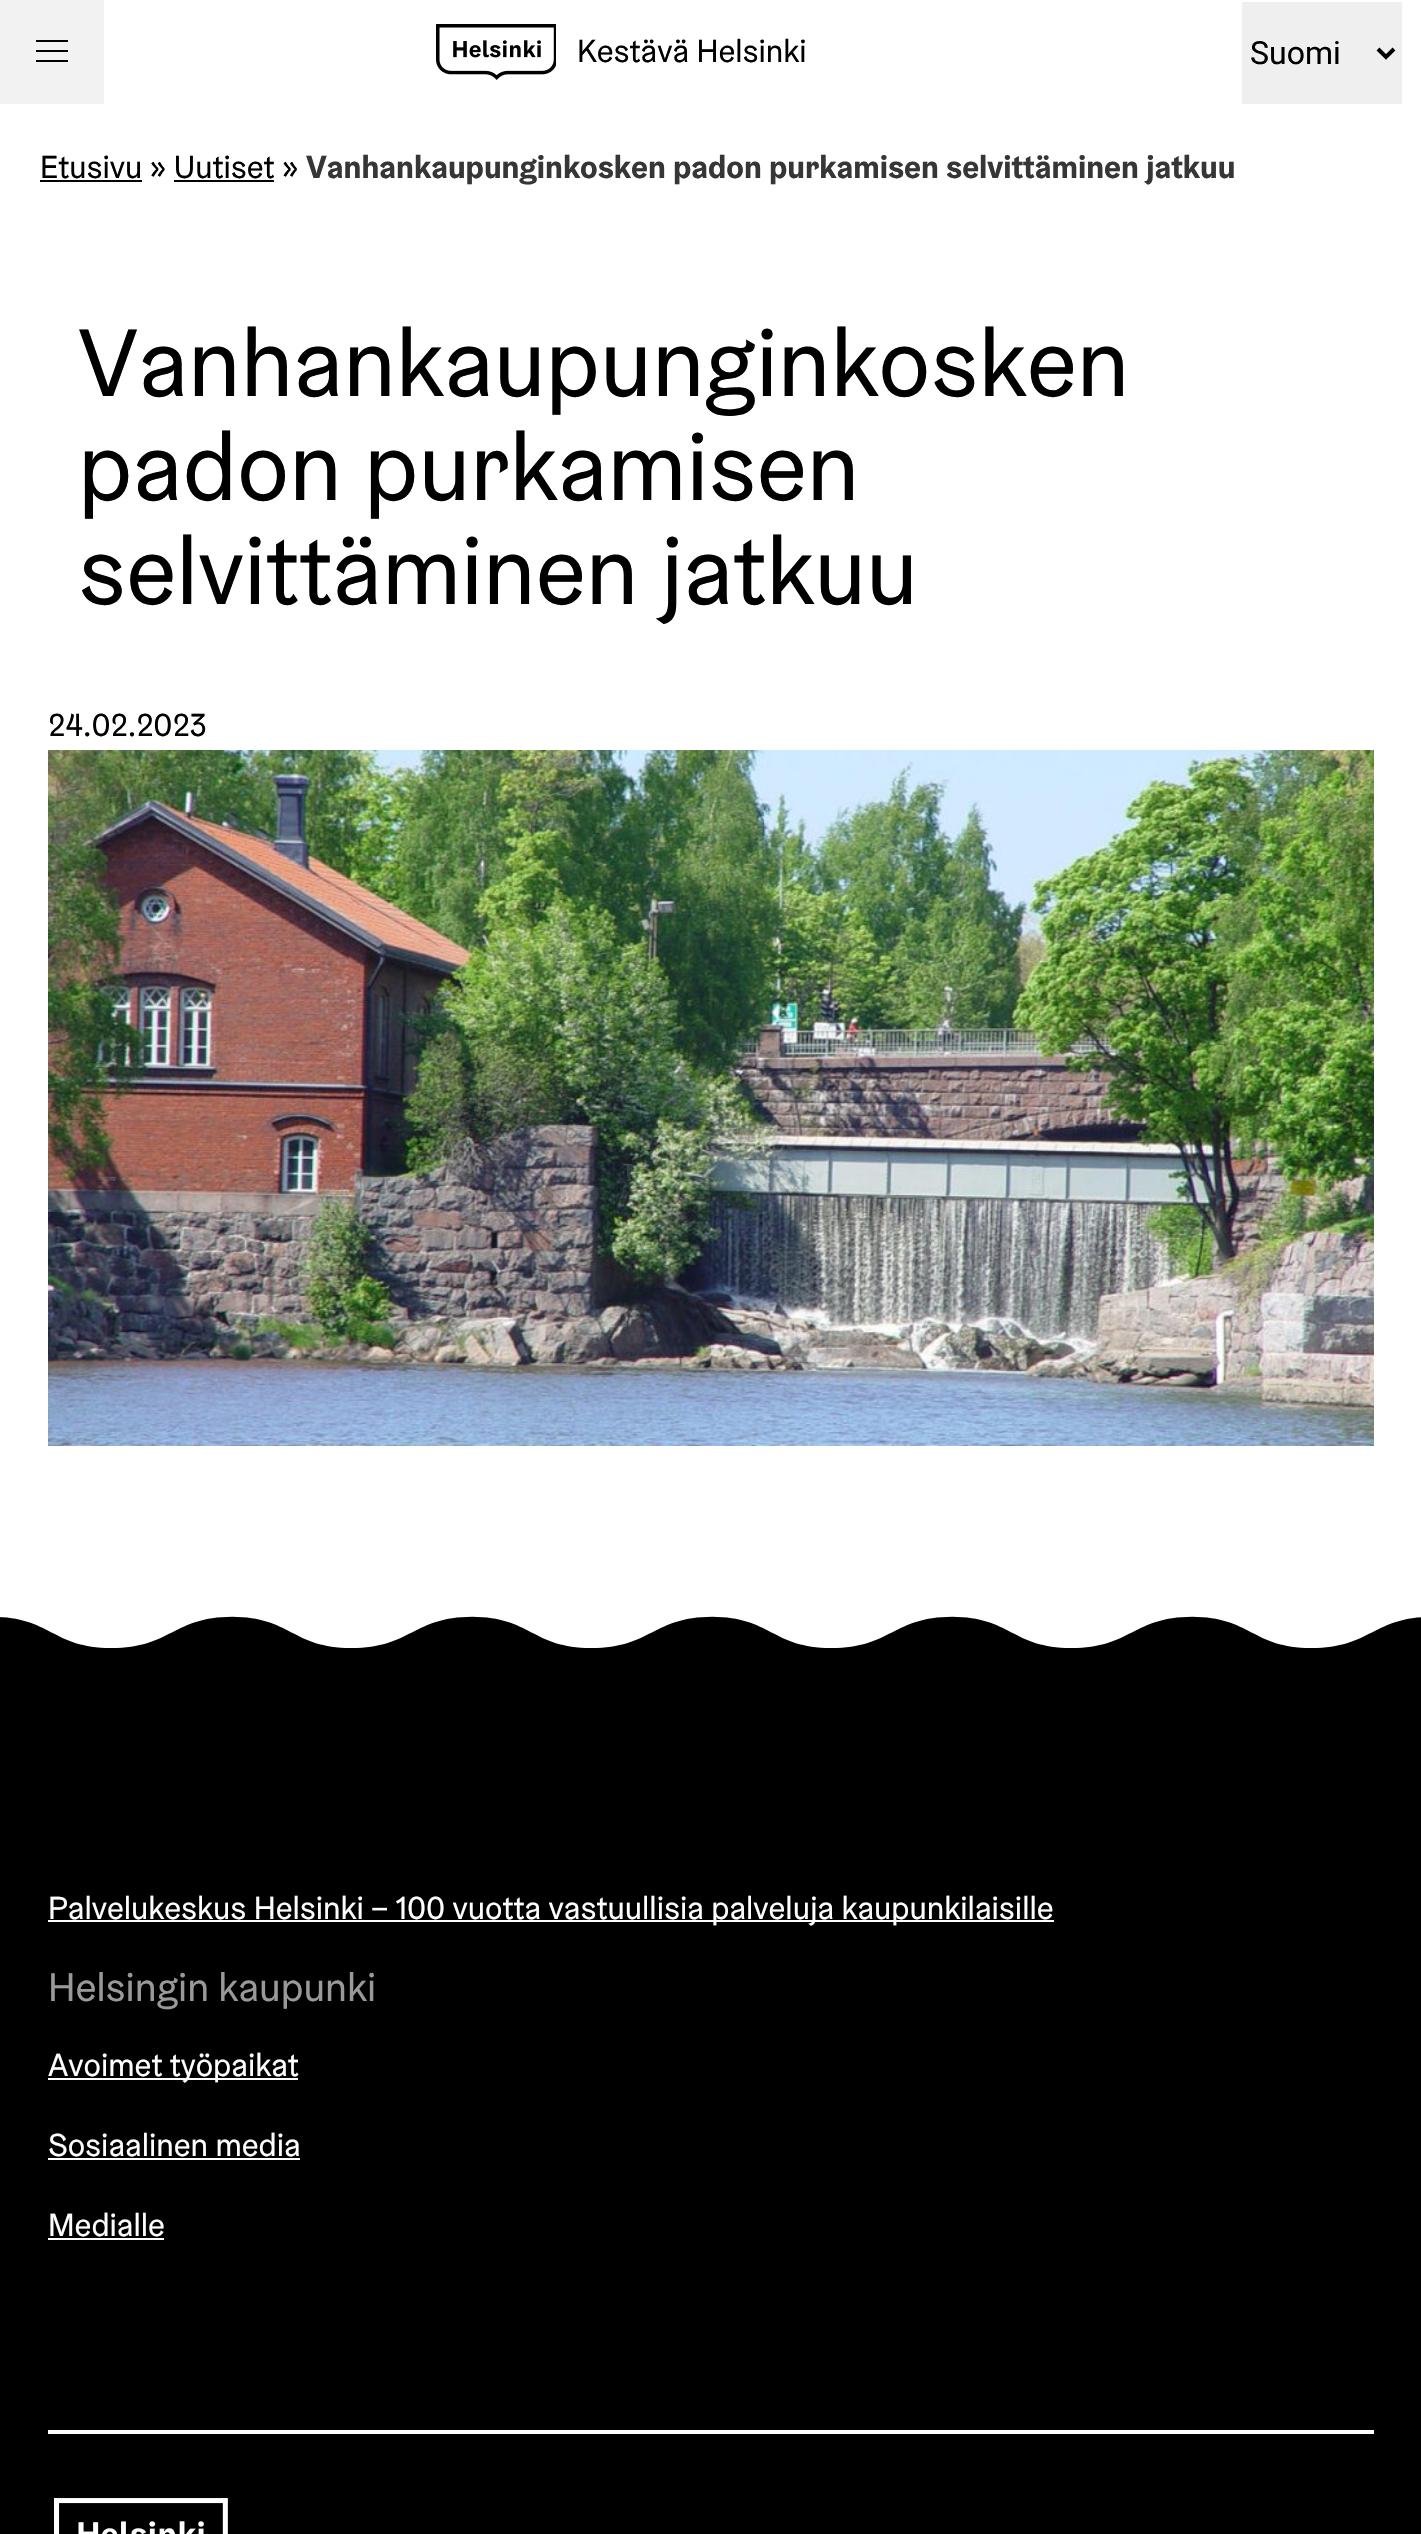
#include "include/core/SkBlurTypes.h"
#include "include/core/SkCanvas.h"
#include "include/core/SkData.h"
#include "include/core/SkFont.h"
#include "include/core/SkFontMgr.h"
#include "include/core/SkImage.h"
#include "include/core/SkMaskFilter.h"
#include "include/core/SkPaint.h"
#include "include/core/SkPathBuilder.h"
#include "include/core/SkTextBlob.h"
#include "include/effects/SkDashPathEffect.h"
#include "include/effects/SkGradientShader.h"
#include "include/utils/SkParsePath.h"

extern sk_sp<SkFontMgr> fontMgr;

void draw(SkCanvas* canvas) {
  SkPaint p;
  p.setAntiAlias(true);
  canvas->clear(SK_ColorWHITE);
  p.setColor(SkColorSetRGB(242, 242, 242));
  canvas->drawRect(SkRect::MakeLTRB(0, 0, 104, 104), p);
  p.setColor(SK_ColorBLACK);
  canvas->drawRect(SkRect::MakeLTRB(36, 40, 68, 42), p);
  canvas->drawRect(SkRect::MakeLTRB(36, 50, 68, 52), p);
  canvas->drawRect(SkRect::MakeLTRB(36, 60, 68, 62), p);
  canvas->drawImageRect(SkImages::DeferredFromEncodedData(SkData::MakeFromFileName("images/1.png")), SkRect::MakeLTRB(436, 24, 556, 80), SkSamplingOptions());
  p.setColor(SkColorSetRGB(239, 239, 239));
  canvas->drawRect(SkRect::MakeLTRB(1242, 2, 1402, 104), p);
  p.setStyle(SkPaint::kStroke_Style);
  p.setStrokeWidth(4);
  p.setColor(SK_ColorBLACK);
  canvas->drawPath(SkPathBuilder().moveTo(1378, 49).lineTo(1386, 57).lineTo(1394, 49).detach(), p);
  p.setStyle(SkPaint::kFill_Style);
  canvas->drawRect(SkRect::MakeLTRB(40, 180, 142, 182), p);
  canvas->drawRect(SkRect::MakeLTRB(174, 180, 274, 182), p);
  canvas->drawImageRect(SkImages::DeferredFromEncodedData(SkData::MakeFromFileName("images/2.png")), SkRect::MakeLTRB(48, 750, 1374, 1446), SkSamplingOptions());
  canvas->drawRect(SkRect::MakeLTRB(0, 1616, 1421, 2534), p);
  canvas->drawImageRect(SkImages::DeferredFromEncodedData(SkData::MakeFromFileName("images/3.png")), SkRect::MakeLTRB(0, 1608, 1421, 1648), SkSamplingOptions());
  p.setColor(SK_ColorWHITE);
  canvas->drawRect(SkRect::MakeLTRB(48, 2430, 1374, 2434), p);
  canvas->drawRect(SkRect::MakeLTRB(48, 1920, 1054, 1922), p);
  canvas->drawRect(SkRect::MakeLTRB(48, 2078, 298, 2080), p);
  canvas->drawRect(SkRect::MakeLTRB(48, 2158, 300, 2160), p);
  canvas->drawRect(SkRect::MakeLTRB(48, 2238, 164, 2240), p);
  canvas->drawImageRect(SkImages::DeferredFromEncodedData(SkData::MakeFromFileName("images/4.png")), SkRect::MakeLTRB(54, 2498, 228, 2534), SkSamplingOptions());
  SkFont font1(fontMgr->matchFamilyStyle("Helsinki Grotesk", SkFontStyle::Normal()), 32);
  font1.setSubpixel(true);
  p.setColor(SK_ColorBLACK);
  canvas->drawString("Kestävä Helsinki", 577, 62, font1, p);
  SkFont font2(fontMgr->matchFamilyStyle("Roboto", SkFontStyle::Normal()), 32);
  font2.setSubpixel(true);
  canvas->drawString("Suomi", 1250, 64, font2, p);
  canvas->drawString("Etusivu » Uutiset »", 40, 178, font1, p);
  SkFont font3(fontMgr->matchFamilyStyle("Helsinki Grotesk", SkFontStyle::Bold()), 32);
  font3.setSubpixel(true);
  p.setColor(SkColorSetRGB(54, 54, 54));
  canvas->drawString("Vanhankaupunginkosken padon purkamisen selvittäminen jatkuu", 306, 178, font3, p);
  SkFont font4(fontMgr->matchFamilyStyle("Helsinki Grotesk", SkFontStyle::Normal()), 96);
  font4.setSubpixel(true);
  p.setColor(SK_ColorBLACK);
  canvas->drawString("Vanhankaupunginkosken", 78, 396, font4, p);
  canvas->drawString("padon purkamisen", 78, 500, font4, p);
  canvas->drawString("selvittäminen jatkuu", 78, 604, font4, p);
  canvas->drawString("24.02.2023", 48, 736, font1, p);
  p.setColor(SK_ColorWHITE);
  canvas->drawString("Palvelukeskus Helsinki – 100 vuotta vastuullisia palveluja kaupunkilaisille", 48, 1919, font1, p);
  SkFont font5(fontMgr->matchFamilyStyle("Helsinki Grotesk", SkFontStyle::Normal()), 40);
  font5.setSubpixel(true);
  p.setColor(SkColorSetRGB(153, 153, 153));
  canvas->drawString("Helsingin kaupunki", 48, 2001, font5, p);
  p.setColor(SK_ColorWHITE);
  canvas->drawString("Avoimet työpaikat", 48, 2076, font1, p);
  canvas->drawString("Sosiaalinen media", 48, 2156, font1, p);
  canvas->drawString("Medialle", 48, 2236, font1, p);
}
